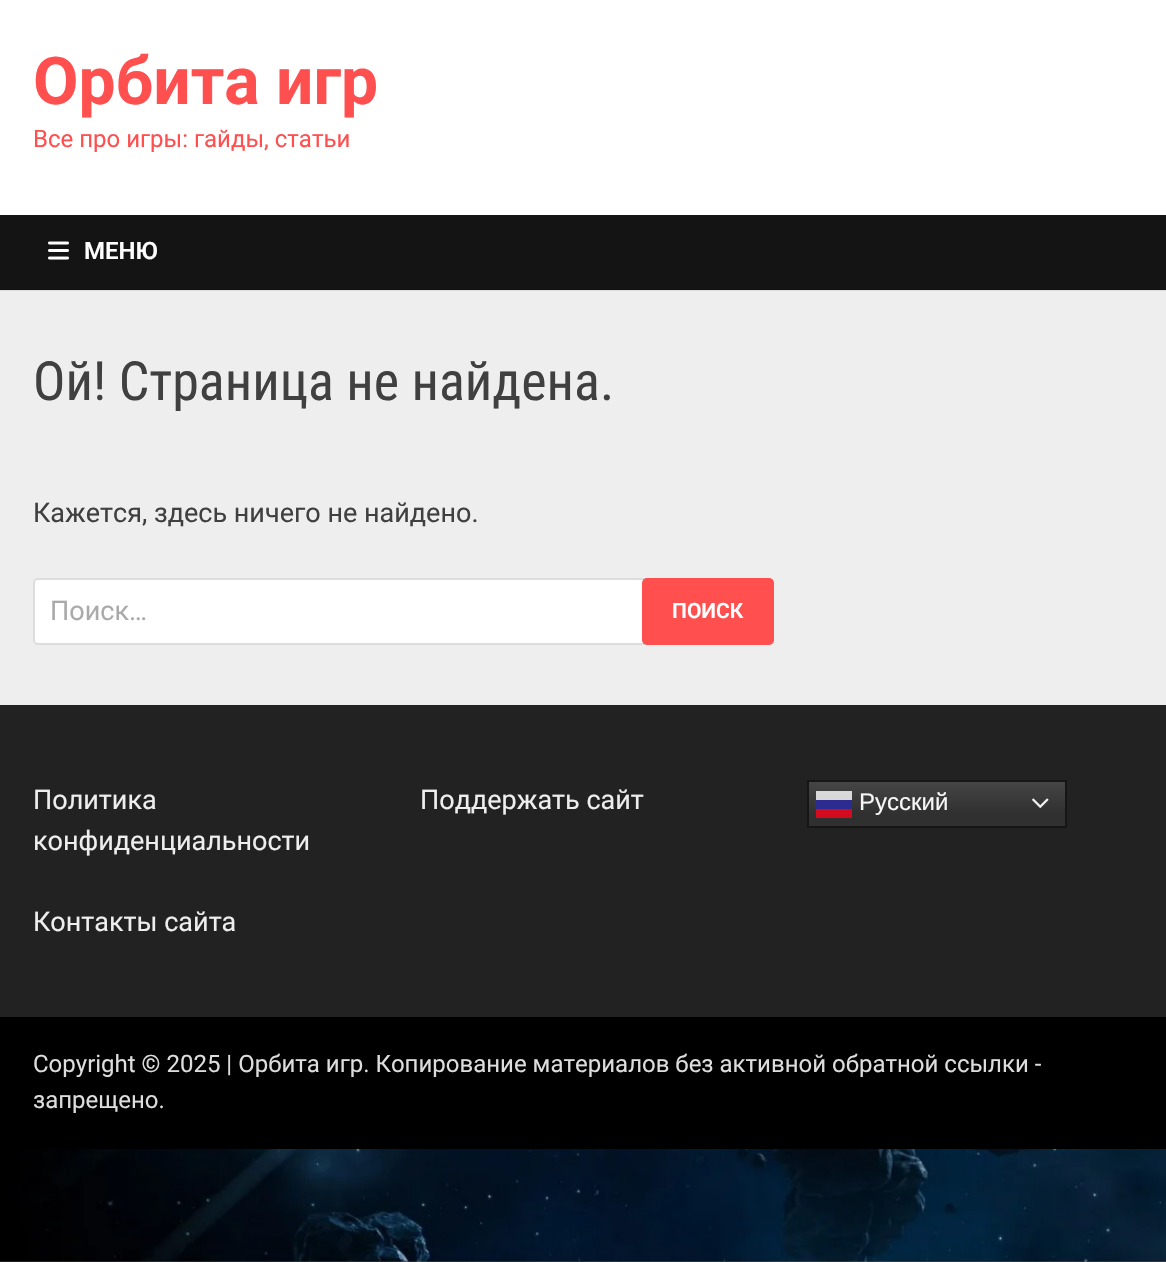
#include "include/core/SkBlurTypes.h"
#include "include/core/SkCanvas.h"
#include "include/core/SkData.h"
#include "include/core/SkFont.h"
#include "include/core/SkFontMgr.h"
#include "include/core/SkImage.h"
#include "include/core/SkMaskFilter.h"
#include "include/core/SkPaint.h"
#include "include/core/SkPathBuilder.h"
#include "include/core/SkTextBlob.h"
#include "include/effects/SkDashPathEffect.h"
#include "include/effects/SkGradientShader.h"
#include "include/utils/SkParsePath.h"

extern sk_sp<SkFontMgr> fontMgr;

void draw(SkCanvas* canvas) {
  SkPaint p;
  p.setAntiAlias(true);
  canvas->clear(SK_ColorWHITE);
  canvas->drawImageRect(SkImages::DeferredFromEncodedData(SkData::MakeFromFileName("images/1.png")), SkRect::MakeLTRB(0, 1149, 1166, 1262), SkSamplingOptions());
  p.setColor(SkColorSetRGB(221, 221, 221));
  canvas->drawRect(SkRect::MakeLTRB(0, 290, 1166, 291), p);
  p.setColor(SkColorSetRGB(20, 20, 20));
  canvas->drawRect(SkRect::MakeLTRB(0, 215, 1166, 290), p);
  canvas->drawImageRect(SkImages::DeferredFromEncodedData(SkData::MakeFromFileName("images/2.png")), SkRect::MakeLTRB(48, 241, 69, 260), SkSamplingOptions());
  p.setColor(SkColorSetRGB(238, 238, 238));
  canvas->drawRect(SkRect::MakeLTRB(0, 291, 1166, 705), p);
  p.setColor(SK_ColorWHITE);
  canvas->drawRoundRect(SkRect::MakeLTRB(34, 579, 773, 644), 4, 4, p);
  p.setStyle(SkPaint::kStroke_Style);
  p.setStrokeWidth(2);
  p.setColor(SkColorSetRGB(221, 221, 221));
  canvas->drawRoundRect(SkRect::MakeLTRB(34, 579, 773, 644), 4, 4, p);
  p.setStyle(SkPaint::kFill_Style);
  p.setColor(SkColorSetRGB(255, 79, 79));
  canvas->drawRoundRect(SkRect::MakeLTRB(642, 578, 774, 645), 5, 5, p);
  p.setColor(SkColorSetRGB(34, 34, 34));
  canvas->drawRect(SkRect::MakeLTRB(0, 705, 1166, 1017), p);
  {
    const SkColor colors[] = {SkColorSetRGB(71, 71, 71), SkColorSetRGB(48, 48, 48)};
    const float stops[] = {0, 0.7f};
    const SkPoint ends[] = {{937, 780}, {937, 828}};
    p.setShader(SkGradientShader::MakeLinear(ends, colors, stops, 2, SkTileMode::kClamp));
    p.setAlpha(255);
  }
  canvas->drawRect(SkRect::MakeLTRB(809, 782, 1065, 826), p);
  p.setStyle(SkPaint::kStroke_Style);
  p.setShader(nullptr);
  p.setColor(SkColorSetRGB(22, 22, 22));
  canvas->drawRect(SkRect::MakeLTRB(808, 781, 1066, 827), p);
  p.setStyle(SkPaint::kFill_Style);
  p.setColor(SkColorSetARGB(204, 255, 255, 255));
  canvas->drawRect(SkRect::MakeLTRB(816, 791, 852, 800), p);
  canvas->drawImageRect(SkImages::DeferredFromEncodedData(SkData::MakeFromFileName("images/3.png")), SkRect::MakeLTRB(1032, 798, 1049, 808), SkSamplingOptions());
  p.setColor(SkColorSetRGB(44, 44, 144));
  canvas->drawRect(SkRect::MakeLTRB(816, 800, 852, 809), p);
  p.setColor(SkColorSetRGB(212, 10, 30));
  canvas->drawRect(SkRect::MakeLTRB(816, 809, 852, 818), p);
  p.setColor(SK_ColorBLACK);
  canvas->drawRect(SkRect::MakeLTRB(0, 1017, 1166, 1149), p);
  SkFont font1(fontMgr->matchFamilyStyle("Roboto", SkFontStyle::Bold()), 66);
  font1.setSubpixel(true);
  p.setColor(SkColorSetRGB(255, 79, 79));
  canvas->drawString("Орбита игр", 33, 104, font1, p);
  SkFont font2(fontMgr->matchFamilyStyle("Roboto", SkFontStyle::Normal()), 24);
  font2.setSubpixel(true);
  canvas->drawString("Все про игры: гайды, статьи", 33, 147, font2, p);
  SkFont font3(fontMgr->matchFamilyStyle("Roboto", SkFontStyle(600, SkFontStyle::kNormal_Width, SkFontStyle::kUpright_Slant)), 24);
  font3.setSubpixel(true);
  p.setColor(SK_ColorWHITE);
  canvas->drawString("МЕНЮ", 84, 259, font3, p);
  SkFont font4(fontMgr->matchFamilyStyle("Roboto Condensed", SkFontStyle::Normal()), 54);
  font4.setSubpixel(true);
  p.setColor(SkColorSetRGB(64, 64, 64));
  canvas->drawString("Ой! Страница не найдена.", 33, 400, font4, p);
  SkFont font5(fontMgr->matchFamilyStyle("Roboto", SkFontStyle::Normal()), 27);
  font5.setSubpixel(true);
  canvas->drawString("Кажется, здесь ничего не найдено.", 33, 522, font5, p);
  p.setColor(SkColorSetRGB(170, 170, 170));
  canvas->drawString("Поиск…", 50, 620, font5, p);
  SkFont font6(fontMgr->matchFamilyStyle("Roboto", SkFontStyle(600, SkFontStyle::kNormal_Width, SkFontStyle::kUpright_Slant)), 21);
  font6.setSubpixel(true);
  p.setColor(SK_ColorWHITE);
  canvas->drawString("ПОИСК", 672, 618, font6, p);
  p.setColor(SkColorSetRGB(238, 238, 238));
  canvas->drawString("Политика", 33, 809, font5, p);
  canvas->drawString("конфиденциальности", 33, 850, font5, p);
  canvas->drawString("Контакты сайта", 33, 931, font5, p);
  canvas->drawString("Поддержать сайт", 420, 809, font5, p);
  SkFont font7(fontMgr->matchFamilyStyle("Liberation Sans", SkFontStyle::Normal()), 24);
  font7.setSubpixel(true);
  p.setColor(SkColorSetRGB(247, 247, 247));
  canvas->drawString("Русский", 859, 810, font7, p);
  p.setColor(SkColorSetRGB(221, 221, 221));
  canvas->drawString("Copyright © 2025 | Орбита игр. Копирование материалов без активной обратной ссылки -", 33, 1072, font2, p);
  canvas->drawString("запрещено.", 33, 1108, font2, p);
}
